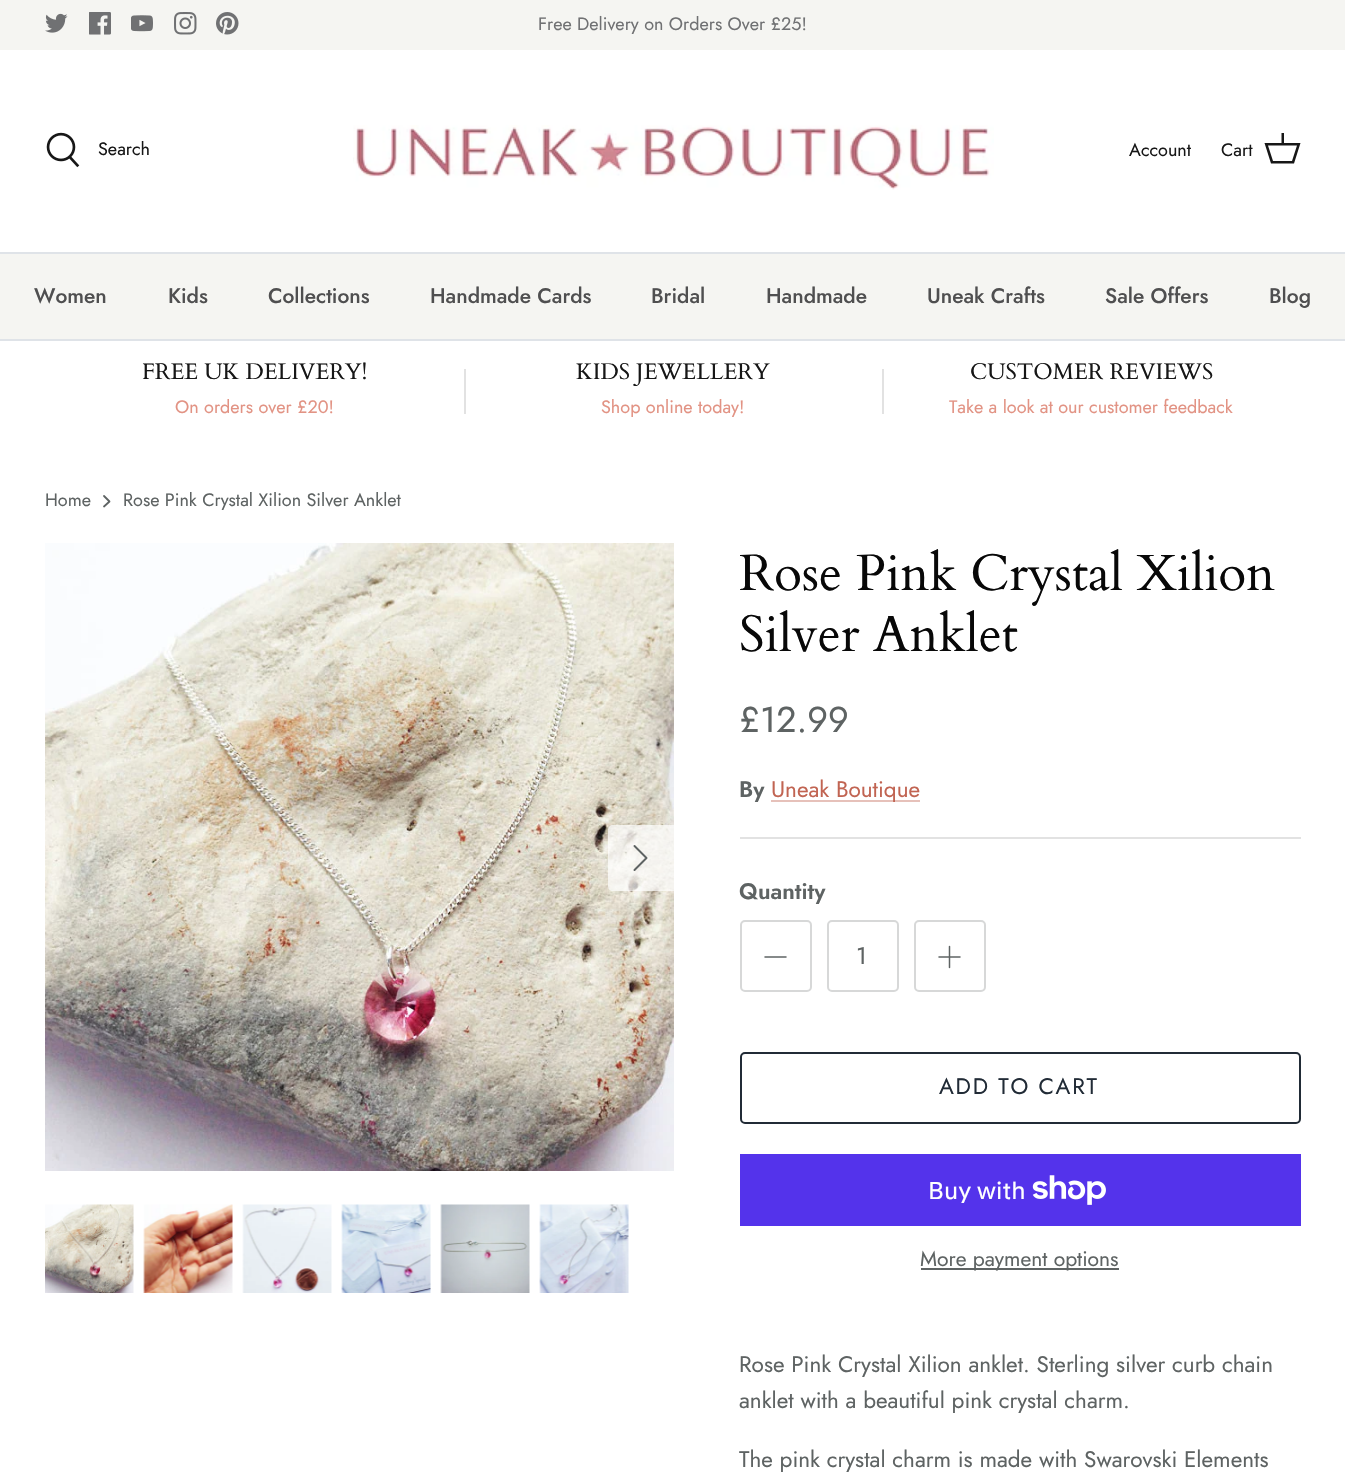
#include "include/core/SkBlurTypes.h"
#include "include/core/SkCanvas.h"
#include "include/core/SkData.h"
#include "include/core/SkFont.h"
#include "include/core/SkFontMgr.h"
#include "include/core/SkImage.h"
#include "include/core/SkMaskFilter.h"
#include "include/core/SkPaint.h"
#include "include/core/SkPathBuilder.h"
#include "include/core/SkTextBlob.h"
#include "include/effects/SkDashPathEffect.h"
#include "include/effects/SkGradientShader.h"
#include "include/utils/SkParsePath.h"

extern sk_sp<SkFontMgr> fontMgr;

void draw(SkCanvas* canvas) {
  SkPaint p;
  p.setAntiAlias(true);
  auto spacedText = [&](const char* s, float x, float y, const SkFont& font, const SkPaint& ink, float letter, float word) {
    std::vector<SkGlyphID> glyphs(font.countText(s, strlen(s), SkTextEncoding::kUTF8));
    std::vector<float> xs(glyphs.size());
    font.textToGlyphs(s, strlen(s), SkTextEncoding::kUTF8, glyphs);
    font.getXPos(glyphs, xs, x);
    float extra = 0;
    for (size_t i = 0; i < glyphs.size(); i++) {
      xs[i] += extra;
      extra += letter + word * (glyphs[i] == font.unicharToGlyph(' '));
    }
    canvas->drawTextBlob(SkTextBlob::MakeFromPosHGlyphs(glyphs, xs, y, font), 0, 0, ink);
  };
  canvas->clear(SK_ColorWHITE);
  p.setColor(SkColorSetRGB(245, 245, 242));
  canvas->drawRect(SkRect::MakeLTRB(0, 0, 1345, 50), p);
  canvas->drawImageRect(SkImages::DeferredFromEncodedData(SkData::MakeFromFileName("images/1.png")), SkRect::MakeLTRB(45, 13, 68, 33), SkSamplingOptions());
  canvas->drawImageRect(SkImages::DeferredFromEncodedData(SkData::MakeFromFileName("images/2.png")), SkRect::MakeLTRB(89, 12, 111, 35), SkSamplingOptions());
  canvas->drawImageRect(SkImages::DeferredFromEncodedData(SkData::MakeFromFileName("images/3.png")), SkRect::MakeLTRB(131, 15, 153, 32), SkSamplingOptions());
  canvas->drawImageRect(SkImages::DeferredFromEncodedData(SkData::MakeFromFileName("images/4.png")), SkRect::MakeLTRB(174, 12, 197, 35), SkSamplingOptions());
  canvas->drawImageRect(SkImages::DeferredFromEncodedData(SkData::MakeFromFileName("images/5.png")), SkRect::MakeLTRB(216, 12, 239, 35), SkSamplingOptions());
  p.setColor(SkColorSetRGB(223, 227, 232));
  canvas->drawRect(SkRect::MakeLTRB(0, 252, 1345, 254), p);
  canvas->drawImageRect(SkImages::DeferredFromEncodedData(SkData::MakeFromFileName("images/6.png")), SkRect::MakeLTRB(46, 132, 80, 168), SkSamplingOptions());
  canvas->drawImageRect(SkImages::DeferredFromEncodedData(SkData::MakeFromFileName("images/7.png")), SkRect::MakeLTRB(353, 125, 994, 190), SkSamplingOptions());
  p.setColor(SkColorSetRGB(23, 23, 23));
  canvas->drawPath(SkPathBuilder().moveTo(1281.5f, 143).lineTo(1281.5f, 133).lineTo(1284, 133).lineTo(1284, 143).lineTo(1300.5f, 143).lineTo(1294, 163.5f).lineTo(1271, 163.5f).lineTo(1264.5f, 143).close().moveTo(1268, 145.5f).lineTo(1273, 161).lineTo(1292, 161).lineTo(1297, 145.5f).close().detach(), p);
  p.setColor(SkColorSetRGB(223, 227, 232));
  canvas->drawRect(SkRect::MakeLTRB(0, 339, 1345, 341), p);
  p.setColor(SkColorSetRGB(245, 245, 242));
  canvas->drawRect(SkRect::MakeLTRB(0, 254, 1345, 339), p);
  p.setColor(SkColorSetRGB(226, 226, 226));
  canvas->drawRect(SkRect::MakeLTRB(464, 369, 466, 414), p);
  canvas->drawRect(SkRect::MakeLTRB(882, 369, 884, 414), p);
  p.setStyle(SkPaint::kStroke_Style);
  p.setStrokeWidth(1.8f);
  p.setStrokeCap(SkPaint::kRound_Cap);
  p.setStrokeJoin(SkPaint::kRound_Join);
  p.setColor(SkColorSetRGB(94, 99, 99));
  canvas->drawPath(SkPathBuilder().moveTo(104, 506.5f).lineTo(109.5f, 501.5f).lineTo(104, 496).detach(), p);
  canvas->drawImageRect(SkImages::DeferredFromEncodedData(SkData::MakeFromFileName("images/8.png")), SkRect::MakeLTRB(45, 543, 674, 1171), SkSamplingOptions());
  p.setStyle(SkPaint::kFill_Style);
  p.setColor(SkColorSetARGB(179, 255, 255, 255));
  canvas->drawPath(SkPathBuilder().moveTo(613, 825).lineTo(674, 825).lineTo(674, 891).lineTo(613, 891).cubicTo(610, 891, 608, 889, 608, 886).lineTo(608, 830).cubicTo(608, 827, 610, 825, 613, 825).close().detach(), p);
  p.setStyle(SkPaint::kStroke_Style);
  p.setStrokeWidth(2);
  p.setColor(SkColorSetRGB(94, 99, 99));
  canvas->drawPath(SkPathBuilder().moveTo(634.5f, 870).lineTo(646.5f, 858).lineTo(634.5f, 846).detach(), p);
  canvas->drawImageRect(SkImages::DeferredFromEncodedData(SkData::MakeFromFileName("images/9.png")), SkRect::MakeLTRB(45, 1204, 134, 1293), SkSamplingOptions());
  canvas->drawImageRect(SkImages::DeferredFromEncodedData(SkData::MakeFromFileName("images/10.png")), SkRect::MakeLTRB(143, 1204, 233, 1293), SkSamplingOptions());
  canvas->drawImageRect(SkImages::DeferredFromEncodedData(SkData::MakeFromFileName("images/11.png")), SkRect::MakeLTRB(242, 1204, 332, 1293), SkSamplingOptions());
  canvas->drawImageRect(SkImages::DeferredFromEncodedData(SkData::MakeFromFileName("images/12.png")), SkRect::MakeLTRB(341, 1204, 431, 1293), SkSamplingOptions());
  canvas->drawImageRect(SkImages::DeferredFromEncodedData(SkData::MakeFromFileName("images/13.png")), SkRect::MakeLTRB(440, 1204, 530, 1293), SkSamplingOptions());
  canvas->drawImageRect(SkImages::DeferredFromEncodedData(SkData::MakeFromFileName("images/14.png")), SkRect::MakeLTRB(539, 1204, 629, 1293), SkSamplingOptions());
  p.setStyle(SkPaint::kFill_Style);
  p.setColor(SkColorSetRGB(230, 193, 186));
  canvas->drawRect(SkRect::MakeLTRB(771, 800, 920, 802), p);
  p.setColor(SkColorSetRGB(226, 226, 226));
  canvas->drawRect(SkRect::MakeLTRB(740, 837, 1301, 839), p);
  p.setStyle(SkPaint::kStroke_Style);
  p.setStrokeCap(SkPaint::kButt_Cap);
  p.setStrokeJoin(SkPaint::kMiter_Join);
  p.setColor(SkColorSetRGB(215, 216, 216));
  canvas->drawRoundRect(SkRect::MakeLTRB(741, 921, 811, 991), 4, 4, p);
  p.setStrokeWidth(1.5f);
  p.setStrokeCap(SkPaint::kRound_Cap);
  p.setStrokeJoin(SkPaint::kRound_Join);
  p.setColor(SkColorSetRGB(94, 99, 99));
  canvas->drawPath(SkPathBuilder().moveTo(765, 957).lineTo(786, 957).detach(), p);
  p.setStrokeWidth(2);
  p.setStrokeCap(SkPaint::kButt_Cap);
  p.setStrokeJoin(SkPaint::kMiter_Join);
  p.setColor(SkColorSetRGB(215, 216, 216));
  canvas->drawRoundRect(SkRect::MakeLTRB(828, 921, 898, 991), 4, 4, p);
  canvas->drawRoundRect(SkRect::MakeLTRB(915, 921, 985, 991), 4, 4, p);
  p.setStrokeWidth(1.5f);
  p.setStrokeCap(SkPaint::kRound_Cap);
  p.setStrokeJoin(SkPaint::kRound_Join);
  p.setColor(SkColorSetRGB(94, 99, 99));
  canvas->drawPath(SkPathBuilder().moveTo(949.5f, 946.5f).lineTo(949.5f, 967.5f).moveTo(939, 957).lineTo(960, 957).detach(), p);
  p.setStrokeWidth(2);
  p.setStrokeCap(SkPaint::kButt_Cap);
  p.setStrokeJoin(SkPaint::kMiter_Join);
  p.setColor(SkColorSetRGB(33, 43, 54));
  canvas->drawRoundRect(SkRect::MakeLTRB(741, 1053, 1300, 1123), 4, 4, p);
  p.setStyle(SkPaint::kFill_Style);
  p.setColor(SkColorSetRGB(84, 51, 235));
  canvas->drawRect(SkRect::MakeLTRB(740, 1154, 1301, 1226), p);
  canvas->drawImageRect(SkImages::DeferredFromEncodedData(SkData::MakeFromFileName("images/15.png")), SkRect::MakeLTRB(1032, 1175, 1106, 1205), SkSamplingOptions());
  p.setColor(SkColorSetRGB(94, 99, 99));
  canvas->drawRect(SkRect::MakeLTRB(921, 1268, 1119, 1270), p);
  SkFont font1(fontMgr->matchFamilyStyle("Jost", SkFontStyle::Normal()), 18);
  font1.setSubpixel(true);
  p.setColor(SkColorSetRGB(112, 113, 115));
  canvas->drawString("Free Delivery on Orders Over £25!", 538, 30, font1, p);
  p.setColor(SkColorSetRGB(23, 23, 23));
  canvas->drawString("Search", 98, 155, font1, p);
  canvas->drawString("Account", 1129, 156, font1, p);
  canvas->drawString("Cart", 1221, 156, font1, p);
  SkFont font2(fontMgr->matchFamilyStyle("Jost", SkFontStyle(500, SkFontStyle::kNormal_Width, SkFontStyle::kUpright_Slant)), 21);
  font2.setSubpixel(true);
  p.setColor(SkColorSetRGB(79, 79, 80));
  canvas->drawString("Women", 34, 303, font2, p);
  canvas->drawString("Kids", 168, 303, font2, p);
  canvas->drawString("Collections", 268, 303, font2, p);
  canvas->drawString("Handmade Cards", 430, 303, font2, p);
  canvas->drawString("Bridal", 651, 303, font2, p);
  canvas->drawString("Handmade", 766, 303, font2, p);
  canvas->drawString("Uneak Crafts", 927, 303, font2, p);
  canvas->drawString("Sale Offers", 1105, 303, font2, p);
  canvas->drawString("Blog", 1269, 303, font2, p);
  SkFont font3(fontMgr->matchFamilyStyle("Cardo", SkFontStyle::Normal()), 22.5f);
  font3.setSubpixel(true);
  p.setColor(SkColorSetRGB(23, 23, 23));
  canvas->drawString("FREE UK DELIVERY!", 142, 379, font3, p);
  p.setColor(SkColorSetRGB(226, 147, 132));
  canvas->drawString("On orders over £20!", 175, 413, font1, p);
  p.setColor(SkColorSetRGB(23, 23, 23));
  canvas->drawString("KIDS JEWELLERY", 576, 379, font3, p);
  p.setColor(SkColorSetRGB(226, 147, 132));
  canvas->drawString("Shop online today!", 601, 413, font1, p);
  p.setColor(SkColorSetRGB(23, 23, 23));
  canvas->drawString("CUSTOMER REVIEWS", 970, 379, font3, p);
  p.setColor(SkColorSetRGB(226, 147, 132));
  canvas->drawString("Take a look at our customer feedback", 949, 413, font1, p);
  p.setColor(SkColorSetRGB(94, 99, 99));
  canvas->drawString("Home", 45, 506, font1, p);
  canvas->drawString("Rose Pink Crystal Xilion Silver Anklet", 123, 506, font1, p);
  SkFont font4(fontMgr->matchFamilyStyle("Cardo", SkFontStyle::Normal()), 51);
  font4.setSubpixel(true);
  p.setColor(SkColorSetRGB(8, 8, 8));
  canvas->drawString("Rose Pink Crystal Xilion", 739, 590, font4, p);
  canvas->drawString("Silver Anklet", 739, 651, font4, p);
  SkFont font5(fontMgr->matchFamilyStyle("Jost", SkFontStyle::Normal()), 36);
  font5.setSubpixel(true);
  p.setColor(SkColorSetRGB(94, 99, 99));
  canvas->drawString("£12.99", 739, 732, font5, p);
  SkFont font6(fontMgr->matchFamilyStyle("Jost", SkFontStyle(600, SkFontStyle::kNormal_Width, SkFontStyle::kUpright_Slant)), 22.5f);
  font6.setSubpixel(true);
  canvas->drawString("By", 739, 797, font6, p);
  SkFont font7(fontMgr->matchFamilyStyle("Jost", SkFontStyle::Normal()), 22.5f);
  font7.setSubpixel(true);
  p.setColor(SkColorSetRGB(193, 100, 82));
  canvas->drawString("Uneak Boutique", 771, 797, font7, p);
  p.setColor(SkColorSetRGB(94, 99, 99));
  canvas->drawString("Quantity", 739, 899, font6, p);
  SkFont font8(fontMgr->matchFamilyStyle("Jost", SkFontStyle::Normal()), 24);
  font8.setSubpixel(true);
  canvas->drawString("1", 856, 964, font8, p);
  p.setColor(SkColorSetRGB(33, 43, 54));
  spacedText("ADD TO CART", 939, 1094, font7, p, 1.75f, 0);
  SkFont font9(fontMgr->matchFamilyStyle("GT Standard", SkFontStyle::Normal()), 24);
  font9.setSubpixel(true);
  p.setColor(SK_ColorWHITE);
  canvas->drawString("Buy with", 928, 1199, font9, p);
  SkFont font10(fontMgr->matchFamilyStyle("Jost", SkFontStyle::Normal()), 21);
  font10.setSubpixel(true);
  p.setColor(SkColorSetRGB(94, 99, 99));
  canvas->drawString("More payment options", 920, 1266, font10, p);
  canvas->drawString("Rose Pink Crystal Xilion anklet. Sterling silver curb chain", 739, 1372, font7, p);
  canvas->drawString("anklet with a beautiful pink crystal charm.", 739, 1408, font7, p);
  canvas->drawString("The pink crystal charm is made with Swarovski Elements", 739, 1467, font7, p);
}
